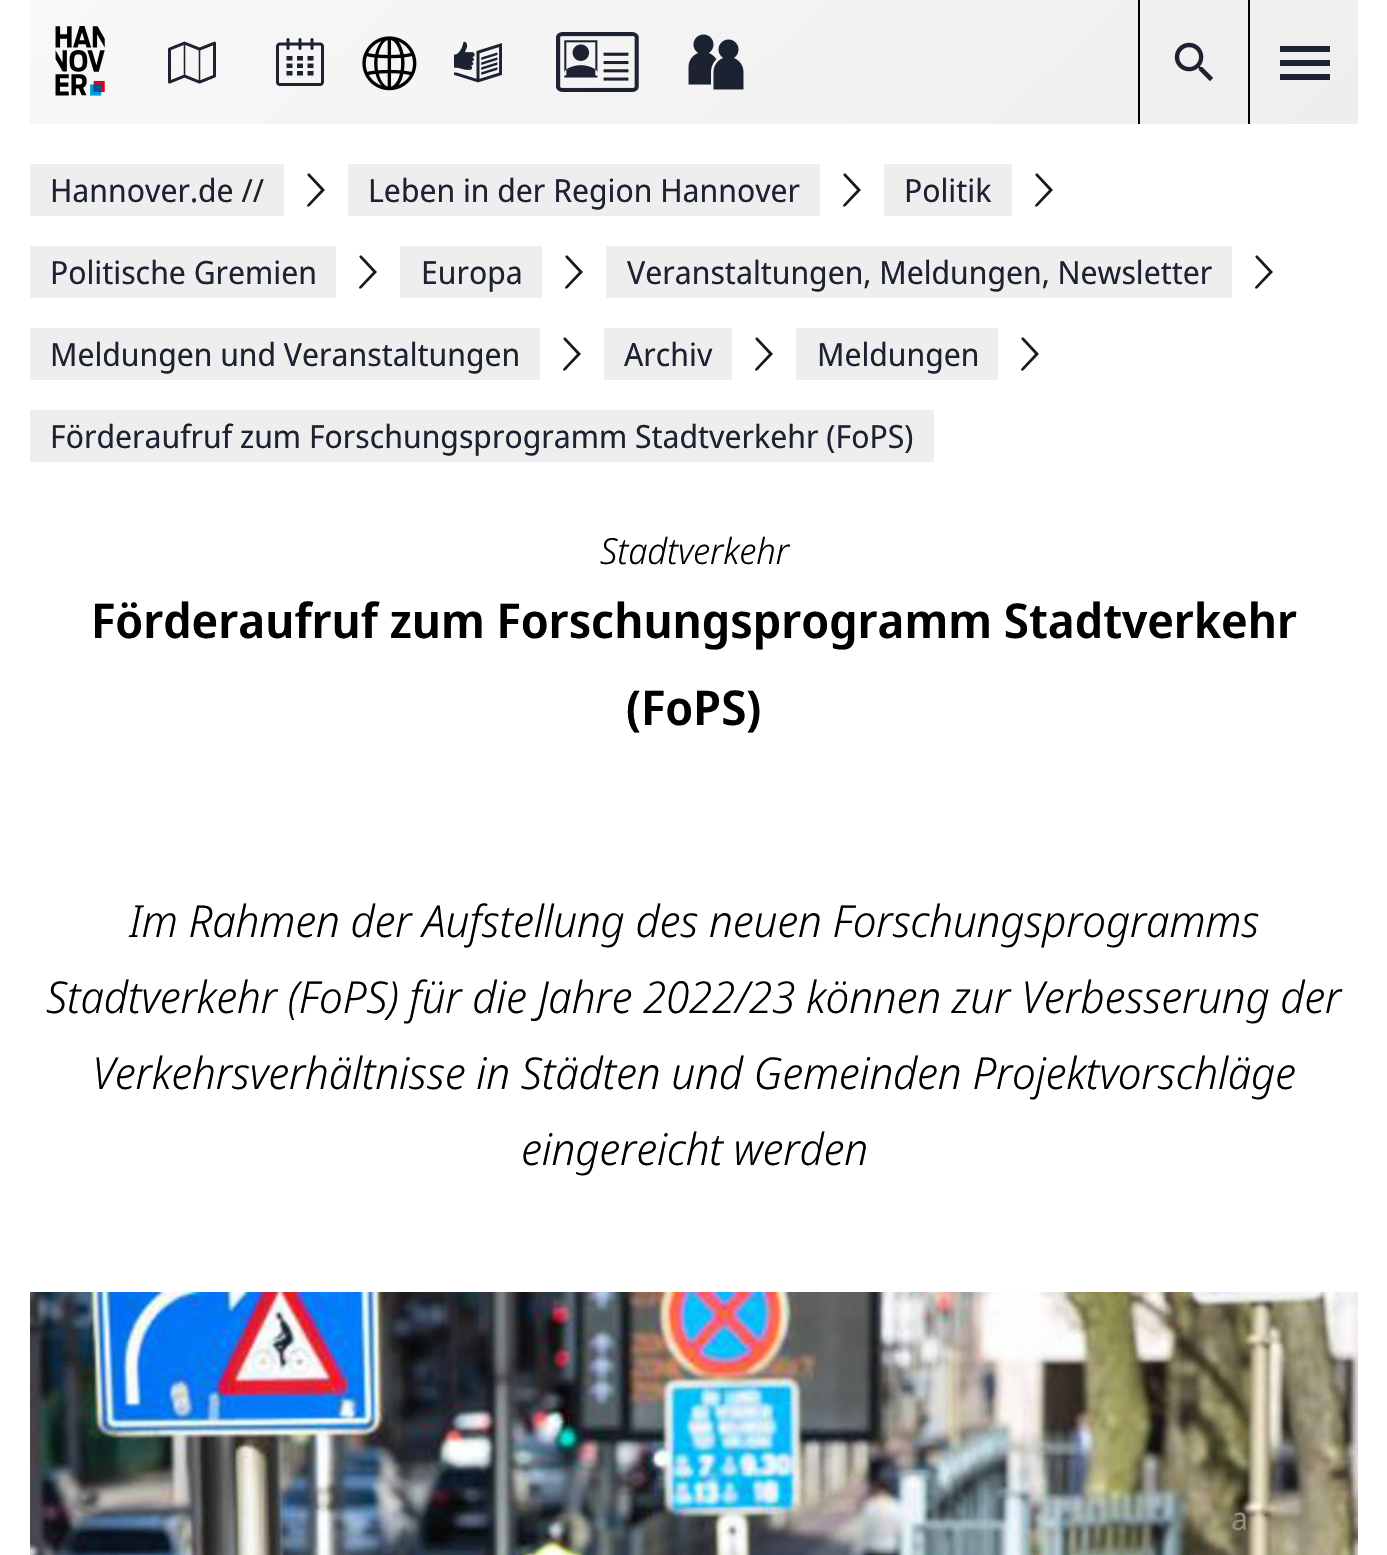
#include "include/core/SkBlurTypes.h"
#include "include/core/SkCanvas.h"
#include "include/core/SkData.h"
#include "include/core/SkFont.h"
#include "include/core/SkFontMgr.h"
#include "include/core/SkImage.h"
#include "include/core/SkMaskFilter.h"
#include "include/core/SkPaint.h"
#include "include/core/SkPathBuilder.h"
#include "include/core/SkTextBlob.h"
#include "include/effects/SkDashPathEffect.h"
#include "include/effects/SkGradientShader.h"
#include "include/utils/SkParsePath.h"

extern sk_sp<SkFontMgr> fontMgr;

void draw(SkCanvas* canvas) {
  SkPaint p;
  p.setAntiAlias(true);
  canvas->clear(SK_ColorWHITE);
  {
    const SkColor colors[] = {SkColorSetRGB(238, 238, 238), SkColorSetRGB(248, 248, 248)};
    const float stops[] = {0, 1};
    const SkPoint ends[] = {{1022, 426}, {366, -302}};
    p.setShader(SkGradientShader::MakeLinear(ends, colors, stops, 2, SkTileMode::kClamp));
    p.setAlpha(255);
  }
  canvas->drawRect(SkRect::MakeLTRB(30, 0, 1358, 124), p);
  canvas->drawImageRect(SkImages::DeferredFromEncodedData(SkData::MakeFromFileName("images/1.png")), SkRect::MakeLTRB(55, 26, 105, 96), SkSamplingOptions());
  canvas->drawImageRect(SkImages::DeferredFromEncodedData(SkData::MakeFromFileName("images/2.png")), SkRect::MakeLTRB(168, 41, 216, 84), SkSamplingOptions());
  canvas->drawImageRect(SkImages::DeferredFromEncodedData(SkData::MakeFromFileName("images/3.png")), SkRect::MakeLTRB(276, 38, 324, 86), SkSamplingOptions());
  canvas->drawImageRect(SkImages::DeferredFromEncodedData(SkData::MakeFromFileName("images/4.png")), SkRect::MakeLTRB(362, 36, 417, 91), SkSamplingOptions());
  canvas->drawImageRect(SkImages::DeferredFromEncodedData(SkData::MakeFromFileName("images/5.png")), SkRect::MakeLTRB(454, 41, 502, 83), SkSamplingOptions());
  canvas->drawImageRect(SkImages::DeferredFromEncodedData(SkData::MakeFromFileName("images/6.png")), SkRect::MakeLTRB(556, 32, 639, 92), SkSamplingOptions());
  canvas->drawImageRect(SkImages::DeferredFromEncodedData(SkData::MakeFromFileName("images/7.png")), SkRect::MakeLTRB(688, 34, 744, 90), SkSamplingOptions());
  p.setShader(nullptr);
  p.setColor(SK_ColorBLACK);
  canvas->drawRect(SkRect::MakeLTRB(1138, 0, 1140, 124), p);
  canvas->drawImageRect(SkImages::DeferredFromEncodedData(SkData::MakeFromFileName("images/8.png")), SkRect::MakeLTRB(1174, 42, 1214, 82), SkSamplingOptions());
  canvas->drawRect(SkRect::MakeLTRB(1248, 0, 1250, 124), p);
  p.setColor(SkColorSetRGB(28, 34, 49));
  canvas->drawRect(SkRect::MakeLTRB(1280, 46, 1330, 52), p);
  canvas->drawRect(SkRect::MakeLTRB(1280, 60, 1330, 66), p);
  canvas->drawRect(SkRect::MakeLTRB(1280, 74, 1330, 80), p);
  p.setColor(SkColorSetRGB(238, 238, 238));
  canvas->drawRect(SkRect::MakeLTRB(30, 164, 284, 216), p);
  p.setColor(SkColorSetRGB(25, 25, 25));
  canvas->drawPath(SkPathBuilder().moveTo(307.5f, 204.5f).lineTo(321, 190).lineTo(310, 178).cubicTo(309.5f, 177.5f, 305.5f, 174, 308.5f, 173.5f).lineTo(309.5f, 173.5f).lineTo(325, 190).lineTo(324.5f, 190.5f).lineTo(312, 203.5f).cubicTo(311.5f, 204, 308, 209, 307, 205.5f).close().detach(), p);
  p.setColor(SkColorSetRGB(238, 238, 238));
  canvas->drawRect(SkRect::MakeLTRB(348, 164, 820, 216), p);
  p.setColor(SkColorSetRGB(25, 25, 25));
  canvas->drawPath(SkPathBuilder().moveTo(843.5f, 204.5f).lineTo(857, 190).lineTo(846, 178).cubicTo(845.5f, 177.5f, 841.5f, 174, 844.5f, 173.5f).lineTo(845.5f, 173.5f).lineTo(861, 190).lineTo(860.5f, 190.5f).lineTo(848, 203.5f).cubicTo(847.5f, 204, 844, 209, 843, 205.5f).close().detach(), p);
  p.setColor(SkColorSetRGB(238, 238, 238));
  canvas->drawRect(SkRect::MakeLTRB(884, 164, 1012, 216), p);
  p.setColor(SkColorSetRGB(25, 25, 25));
  canvas->drawPath(SkPathBuilder().moveTo(1035.5f, 204.5f).lineTo(1049, 190).lineTo(1038, 178).cubicTo(1037.5f, 177.5f, 1033.5f, 174, 1036.5f, 173.5f).lineTo(1037.5f, 173.5f).lineTo(1053, 190).lineTo(1052.5f, 190.5f).lineTo(1040, 203.5f).cubicTo(1039.5f, 204, 1036, 209, 1035, 205.5f).close().detach(), p);
  p.setColor(SkColorSetRGB(238, 238, 238));
  canvas->drawRect(SkRect::MakeLTRB(30, 246, 336, 298), p);
  p.setColor(SkColorSetRGB(25, 25, 25));
  canvas->drawPath(SkPathBuilder().moveTo(359.5f, 286.5f).lineTo(373, 272).lineTo(362, 260).cubicTo(361.5f, 259.5f, 357.5f, 256, 360.5f, 255.5f).lineTo(361.5f, 255.5f).lineTo(377, 272).lineTo(376.5f, 272.5f).lineTo(364, 285.5f).cubicTo(363.5f, 286, 360, 291, 359, 287.5f).close().detach(), p);
  p.setColor(SkColorSetRGB(238, 238, 238));
  canvas->drawRect(SkRect::MakeLTRB(400, 246, 542, 298), p);
  p.setColor(SkColorSetRGB(25, 25, 25));
  canvas->drawPath(SkPathBuilder().moveTo(565.5f, 286.5f).lineTo(579, 272).lineTo(568, 260).cubicTo(567.5f, 259.5f, 563.5f, 256, 566.5f, 255.5f).lineTo(567.5f, 255.5f).lineTo(583, 272).lineTo(582.5f, 272.5f).lineTo(570, 285.5f).cubicTo(569.5f, 286, 566, 291, 565, 287.5f).close().detach(), p);
  p.setColor(SkColorSetRGB(238, 238, 238));
  canvas->drawRect(SkRect::MakeLTRB(606, 246, 1232, 298), p);
  p.setColor(SkColorSetRGB(25, 25, 25));
  canvas->drawPath(SkPathBuilder().moveTo(1255.5f, 286.5f).lineTo(1269, 272).lineTo(1258, 260).cubicTo(1257.5f, 259.5f, 1253.5f, 256, 1256.5f, 255.5f).lineTo(1257.5f, 255.5f).lineTo(1273, 272).lineTo(1272.5f, 272.5f).lineTo(1260, 285.5f).cubicTo(1259.5f, 286, 1256, 291, 1255, 287.5f).close().detach(), p);
  p.setColor(SkColorSetRGB(238, 238, 238));
  canvas->drawRect(SkRect::MakeLTRB(30, 328, 540, 380), p);
  p.setColor(SkColorSetRGB(25, 25, 25));
  canvas->drawPath(SkPathBuilder().moveTo(563.5f, 368.5f).lineTo(577, 354).lineTo(566, 342).cubicTo(565.5f, 341.5f, 561.5f, 338, 564.5f, 337.5f).lineTo(565.5f, 337.5f).lineTo(581, 354).lineTo(580.5f, 354.5f).lineTo(568, 367.5f).cubicTo(567.5f, 368, 564, 373, 563, 369.5f).close().detach(), p);
  p.setColor(SkColorSetRGB(238, 238, 238));
  canvas->drawRect(SkRect::MakeLTRB(604, 328, 732, 380), p);
  p.setColor(SkColorSetRGB(25, 25, 25));
  canvas->drawPath(SkPathBuilder().moveTo(755.5f, 368.5f).lineTo(769, 354).lineTo(758, 342).cubicTo(757.5f, 341.5f, 753.5f, 338, 756.5f, 337.5f).lineTo(757.5f, 337.5f).lineTo(773, 354).lineTo(772.5f, 354.5f).lineTo(760, 367.5f).cubicTo(759.5f, 368, 756, 373, 755, 369.5f).close().detach(), p);
  p.setColor(SkColorSetRGB(238, 238, 238));
  canvas->drawRect(SkRect::MakeLTRB(796, 328, 998, 380), p);
  p.setColor(SkColorSetRGB(25, 25, 25));
  canvas->drawPath(SkPathBuilder().moveTo(1021.5f, 368.5f).lineTo(1035, 354).lineTo(1024, 342).cubicTo(1023.5f, 341.5f, 1019.5f, 338, 1022.5f, 337.5f).lineTo(1023.5f, 337.5f).lineTo(1039, 354).lineTo(1038.5f, 354.5f).lineTo(1026, 367.5f).cubicTo(1025.5f, 368, 1022, 373, 1021, 369.5f).close().detach(), p);
  p.setColor(SkColorSetRGB(238, 238, 238));
  canvas->drawRect(SkRect::MakeLTRB(30, 410, 934, 462), p);
  canvas->drawImageRect(SkImages::DeferredFromEncodedData(SkData::MakeFromFileName("images/9.png")), SkRect::MakeLTRB(30, 1292, 1358, 1555), SkSamplingOptions());
  SkFont font1(fontMgr->matchFamilyStyle("Noto Sans Display", SkFontStyle::Normal()), 32);
  font1.setSubpixel(true);
  p.setColor(SkColorSetRGB(28, 34, 49));
  canvas->drawString("Hannover.de //", 50, 202, font1, p);
  canvas->drawString("Leben in der Region Hannover", 368, 202, font1, p);
  canvas->drawString("Politik", 904, 202, font1, p);
  canvas->drawString("Politische Gremien", 50, 284, font1, p);
  canvas->drawString("Europa", 421, 284, font1, p);
  canvas->drawString("Veranstaltungen, Meldungen, Newsletter", 627, 284, font1, p);
  canvas->drawString("Meldungen und Veranstaltungen", 50, 366, font1, p);
  canvas->drawString("Archiv", 624, 366, font1, p);
  canvas->drawString("Meldungen", 817, 366, font1, p);
  canvas->drawString("Förderaufruf zum Forschungsprogramm Stadtverkehr (FoPS)", 50, 448, font1, p);
  SkFont font2(fontMgr->matchFamilyStyle("Noto Sans Display", SkFontStyle(300, SkFontStyle::kNormal_Width, SkFontStyle::kItalic_Slant)), 36);
  font2.setSubpixel(true);
  p.setColor(SK_ColorBLACK);
  canvas->drawString("Stadtverkehr", 600, 564, font2, p);
  SkFont font3(fontMgr->matchFamilyStyle("Noto Sans Display", SkFontStyle(600, SkFontStyle::kNormal_Width, SkFontStyle::kUpright_Slant)), 48);
  font3.setSubpixel(true);
  canvas->drawString("Förderaufruf zum Forschungsprogramm Stadtverkehr", 91, 638, font3, p);
  canvas->drawString("(FoPS)", 626, 725, font3, p);
  SkFont font4(fontMgr->matchFamilyStyle("Noto Sans Display", SkFontStyle(300, SkFontStyle::kNormal_Width, SkFontStyle::kItalic_Slant)), 44);
  font4.setSubpixel(true);
  canvas->drawString("Im Rahmen der Aufstellung des neuen Forschungsprogramms", 129, 937, font4, p);
  canvas->drawString("Stadtverkehr (FoPS) für die Jahre 2022/23 können zur Verbesserung der", 46, 1013, font4, p);
  canvas->drawString("Verkehrsverhältnisse in Städten und Gemeinden Projektvorschläge", 92, 1089, font4, p);
  canvas->drawString("eingereicht werden", 521, 1165, font4, p);
  p.setColor(SkColorSetRGB(149, 142, 114));
  canvas->drawString("a", 1231, 1530, font1, p);
}
